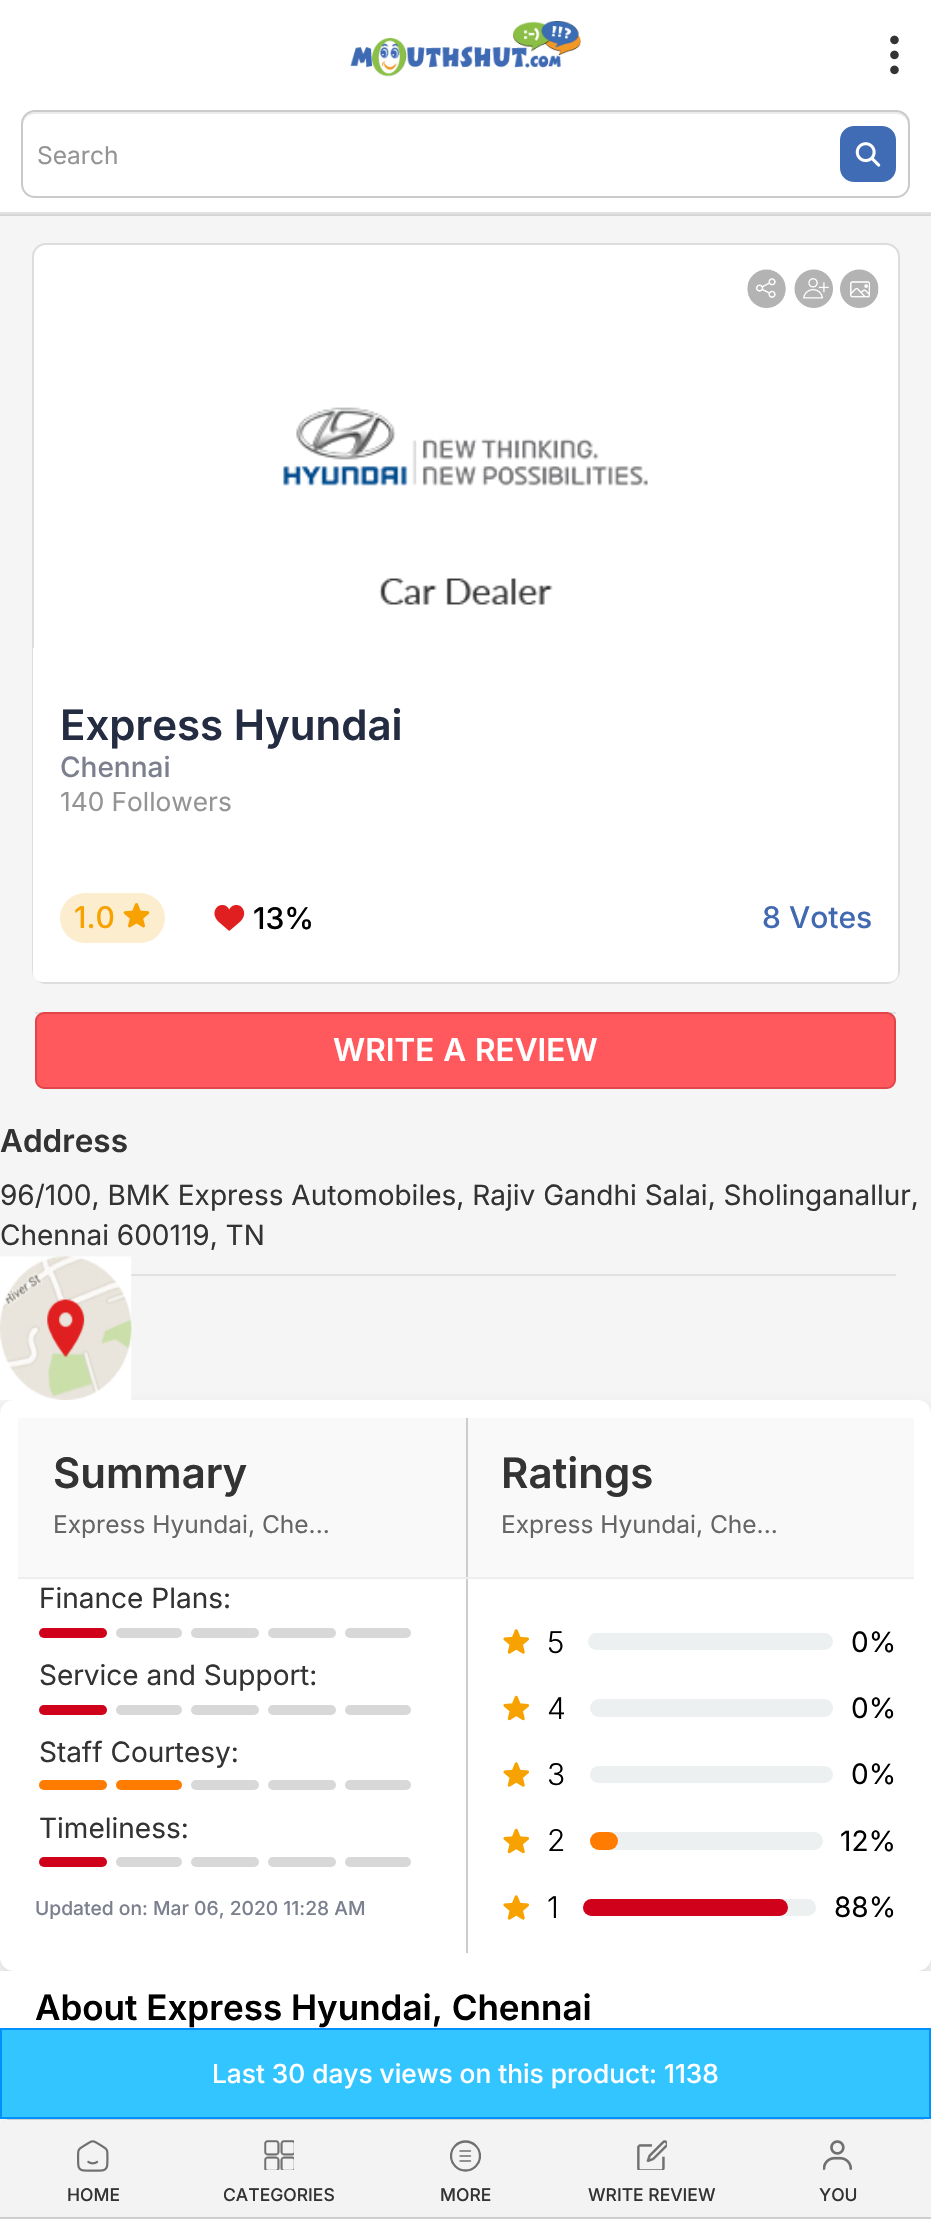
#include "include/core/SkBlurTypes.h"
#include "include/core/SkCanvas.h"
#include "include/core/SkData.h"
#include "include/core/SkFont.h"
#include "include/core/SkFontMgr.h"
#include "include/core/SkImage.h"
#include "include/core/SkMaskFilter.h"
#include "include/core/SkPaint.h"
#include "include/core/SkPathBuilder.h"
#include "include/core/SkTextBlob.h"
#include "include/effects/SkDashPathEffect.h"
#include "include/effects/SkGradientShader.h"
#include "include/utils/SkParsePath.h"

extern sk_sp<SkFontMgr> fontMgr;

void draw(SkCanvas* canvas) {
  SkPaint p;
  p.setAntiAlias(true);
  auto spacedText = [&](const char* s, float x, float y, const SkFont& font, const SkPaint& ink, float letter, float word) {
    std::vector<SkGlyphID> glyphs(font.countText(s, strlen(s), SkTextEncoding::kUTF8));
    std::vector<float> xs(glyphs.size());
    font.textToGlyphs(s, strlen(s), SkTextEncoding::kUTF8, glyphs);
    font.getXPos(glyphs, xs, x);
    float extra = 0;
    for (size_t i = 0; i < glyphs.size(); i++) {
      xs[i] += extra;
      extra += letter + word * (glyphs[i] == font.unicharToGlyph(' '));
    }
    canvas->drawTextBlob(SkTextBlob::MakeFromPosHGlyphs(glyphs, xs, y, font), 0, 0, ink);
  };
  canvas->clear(SkColorSetRGB(245, 245, 245));
  p.setColor(SK_ColorWHITE);
  canvas->drawRect(SkRect::MakeLTRB(0, 0, 931, 212), p);
  p.setColor(SkColorSetRGB(217, 217, 217));
  canvas->drawRect(SkRect::MakeLTRB(0, 214, 931, 215), p);
  canvas->drawImageRect(SkImages::DeferredFromEncodedData(SkData::MakeFromFileName("images/1.png")), SkRect::MakeLTRB(350, 21, 582, 77), SkSamplingOptions());
  canvas->drawImageRect(SkImages::DeferredFromEncodedData(SkData::MakeFromFileName("images/2.png")), SkRect::MakeLTRB(890, 35, 899, 75), SkSamplingOptions());
  p.setColor(SkColorSetRGB(225, 225, 225));
  canvas->drawRect(SkRect::MakeLTRB(0, 212, 931, 214), p);
  p.setColor(SkColorSetRGB(235, 235, 235));
  canvas->drawPath(SkPathBuilder().moveTo(35, 114).lineTo(896, 114).cubicTo(903, 114, 908, 119, 908, 126).lineTo(908, 124).cubicTo(908, 117, 903, 112, 896, 112).lineTo(35, 112).cubicTo(28, 112, 23, 117, 23, 124).lineTo(23, 126).cubicTo(23, 119, 28, 114, 35, 114).close().detach(), p);
  p.setStyle(SkPaint::kStroke_Style);
  p.setStrokeWidth(2);
  p.setColor(SkColorSetRGB(202, 202, 202));
  canvas->drawRoundRect(SkRect::MakeLTRB(22, 111, 909, 197), 13, 13, p);
  canvas->drawImageRect(SkImages::DeferredFromEncodedData(SkData::MakeFromFileName("images/3.png")), SkRect::MakeLTRB(840, 126, 896, 182), SkSamplingOptions());
  p.setStyle(SkPaint::kFill_Style);
  p.setColor(SkColorSetRGB(212, 212, 212));
  canvas->drawRect(SkRect::MakeLTRB(0, 215, 931, 216), p);
  p.setColor(SK_ColorWHITE);
  canvas->drawRoundRect(SkRect::MakeLTRB(33, 244, 899, 983), 13, 13, p);
  p.setStyle(SkPaint::kStroke_Style);
  p.setColor(SkColorSetRGB(221, 221, 221));
  canvas->drawRoundRect(SkRect::MakeLTRB(33, 244, 899, 983), 13, 13, p);
  canvas->drawImageRect(SkImages::DeferredFromEncodedData(SkData::MakeFromFileName("images/4.png")), SkRect::MakeLTRB(747, 269, 786, 308), SkSamplingOptions());
  canvas->drawImageRect(SkImages::DeferredFromEncodedData(SkData::MakeFromFileName("images/5.png")), SkRect::MakeLTRB(794, 269, 833, 308), SkSamplingOptions());
  canvas->drawImageRect(SkImages::DeferredFromEncodedData(SkData::MakeFromFileName("images/6.png")), SkRect::MakeLTRB(840, 269, 879, 308), SkSamplingOptions());
  canvas->drawImageRect(SkImages::DeferredFromEncodedData(SkData::MakeFromFileName("images/7.png")), SkRect::MakeLTRB(283, 407, 648, 605), SkSamplingOptions());
  p.setStyle(SkPaint::kFill_Style);
  p.setColor(SK_ColorWHITE);
  canvas->drawPath(SkPathBuilder().moveTo(33, 648).lineTo(898, 648).lineTo(898, 973).cubicTo(898, 978, 894, 982, 889, 982).lineTo(42, 982).cubicTo(37, 982, 33, 978, 33, 973).close().detach(), p);
  p.setColor(SkColorSetRGB(253, 237, 207));
  canvas->drawRoundRect(SkRect::MakeLTRB(60, 893, 165, 943), 25, 25, p);
  canvas->drawImageRect(SkImages::DeferredFromEncodedData(SkData::MakeFromFileName("images/8.png")), SkRect::MakeLTRB(123, 903, 150, 928), SkSamplingOptions());
  canvas->drawImageRect(SkImages::DeferredFromEncodedData(SkData::MakeFromFileName("images/9.png")), SkRect::MakeLTRB(214, 905, 245, 931), SkSamplingOptions());
  p.setColor(SkColorSetRGB(224, 225, 227));
  canvas->drawRect(SkRect::MakeLTRB(35, 1012, 896, 1014), p);
  p.setColor(SkColorSetRGB(255, 89, 94));
  canvas->drawRoundRect(SkRect::MakeLTRB(36, 1013, 895, 1088), 8, 8, p);
  p.setStyle(SkPaint::kStroke_Style);
  p.setColor(SkColorSetRGB(225, 68, 73));
  canvas->drawRoundRect(SkRect::MakeLTRB(36, 1013, 895, 1088), 8, 8, p);
  p.setStyle(SkPaint::kFill_Style);
  p.setColor(SkColorSetRGB(224, 225, 227));
  canvas->drawRect(SkRect::MakeLTRB(131, 1274, 896, 1276), p);
  p.setColor(SkColorSetARGB(26, 0, 0, 0));
  p.setMaskFilter(SkMaskFilter::MakeBlur(kNormal_SkBlurStyle, 7));
  canvas->drawRoundRect(SkRect::MakeLTRB(0, 1407, 931, 1978), 14, 14, p);
  p.setMaskFilter(nullptr);
  canvas->drawImageRect(SkImages::DeferredFromEncodedData(SkData::MakeFromFileName("images/10.png")), SkRect::MakeLTRB(0, 1256, 132, 1400), SkSamplingOptions());
  p.setColor(SK_ColorWHITE);
  canvas->drawRoundRect(SkRect::MakeLTRB(0, 1400, 931, 1971), 14, 14, p);
  p.setColor(SkColorSetRGB(249, 249, 249));
  canvas->drawRect(SkRect::MakeLTRB(18, 1418, 914, 1577), p);
  p.setColor(SkColorSetRGB(238, 238, 238));
  canvas->drawRect(SkRect::MakeLTRB(18, 1577, 914, 1579), p);
  p.setColor(SkColorSetRGB(204, 204, 204));
  canvas->drawRect(SkRect::MakeLTRB(466, 1418, 468, 1577), p);
  p.setColor(SkColorSetRGB(208, 2, 27));
  canvas->drawRoundRect(SkRect::MakeLTRB(39, 1628, 107, 1638), 5, 5, p);
  p.setColor(SkColorSetRGB(216, 216, 216));
  canvas->drawRoundRect(SkRect::MakeLTRB(116, 1628, 182, 1638), 5, 5, p);
  canvas->drawRoundRect(SkRect::MakeLTRB(191, 1628, 259, 1638), 5, 5, p);
  canvas->drawRoundRect(SkRect::MakeLTRB(268, 1628, 336, 1638), 5, 5, p);
  canvas->drawRoundRect(SkRect::MakeLTRB(345, 1628, 411, 1638), 5, 5, p);
  p.setColor(SkColorSetRGB(208, 2, 27));
  canvas->drawRoundRect(SkRect::MakeLTRB(39, 1705, 107, 1715), 5, 5, p);
  p.setColor(SkColorSetRGB(216, 216, 216));
  canvas->drawRoundRect(SkRect::MakeLTRB(116, 1705, 182, 1715), 5, 5, p);
  canvas->drawRoundRect(SkRect::MakeLTRB(191, 1705, 259, 1715), 5, 5, p);
  canvas->drawRoundRect(SkRect::MakeLTRB(268, 1705, 336, 1715), 5, 5, p);
  canvas->drawRoundRect(SkRect::MakeLTRB(345, 1705, 411, 1715), 5, 5, p);
  p.setColor(SkColorSetRGB(255, 124, 0));
  canvas->drawRoundRect(SkRect::MakeLTRB(39, 1780, 107, 1790), 5, 5, p);
  canvas->drawRoundRect(SkRect::MakeLTRB(116, 1780, 182, 1790), 5, 5, p);
  p.setColor(SkColorSetRGB(216, 216, 216));
  canvas->drawRoundRect(SkRect::MakeLTRB(191, 1780, 259, 1790), 5, 5, p);
  canvas->drawRoundRect(SkRect::MakeLTRB(268, 1780, 336, 1790), 5, 5, p);
  canvas->drawRoundRect(SkRect::MakeLTRB(345, 1780, 411, 1790), 5, 5, p);
  p.setColor(SkColorSetRGB(208, 2, 27));
  canvas->drawRoundRect(SkRect::MakeLTRB(39, 1857, 107, 1867), 5, 5, p);
  p.setColor(SkColorSetRGB(216, 216, 216));
  canvas->drawRoundRect(SkRect::MakeLTRB(116, 1857, 182, 1867), 5, 5, p);
  canvas->drawRoundRect(SkRect::MakeLTRB(191, 1857, 259, 1867), 5, 5, p);
  canvas->drawRoundRect(SkRect::MakeLTRB(268, 1857, 336, 1867), 5, 5, p);
  canvas->drawRoundRect(SkRect::MakeLTRB(345, 1857, 411, 1867), 5, 5, p);
  p.setColor(SkColorSetRGB(204, 204, 204));
  canvas->drawRect(SkRect::MakeLTRB(466, 1579, 468, 1953), p);
  canvas->drawImageRect(SkImages::DeferredFromEncodedData(SkData::MakeFromFileName("images/11.png")), SkRect::MakeLTRB(503, 1629, 529, 1654), SkSamplingOptions());
  p.setColor(SkColorSetRGB(236, 240, 241));
  canvas->drawRoundRect(SkRect::MakeLTRB(588, 1633, 833, 1650), 8.5f, 8.5f, p);
  canvas->drawImageRect(SkImages::DeferredFromEncodedData(SkData::MakeFromFileName("images/12.png")), SkRect::MakeLTRB(503, 1695, 530, 1721), SkSamplingOptions());
  canvas->drawRoundRect(SkRect::MakeLTRB(590, 1699, 833, 1717), 9, 9, p);
  canvas->drawImageRect(SkImages::DeferredFromEncodedData(SkData::MakeFromFileName("images/11.png")), SkRect::MakeLTRB(503, 1762, 529, 1787), SkSamplingOptions());
  canvas->drawRoundRect(SkRect::MakeLTRB(590, 1766, 833, 1783), 8.5f, 8.5f, p);
  canvas->drawImageRect(SkImages::DeferredFromEncodedData(SkData::MakeFromFileName("images/12.png")), SkRect::MakeLTRB(503, 1828, 530, 1854), SkSamplingOptions());
  canvas->drawRoundRect(SkRect::MakeLTRB(590, 1832, 823, 1850), 9, 9, p);
  p.setColor(SkColorSetRGB(255, 124, 0));
  canvas->drawRoundRect(SkRect::MakeLTRB(590, 1832, 618, 1850), 9, 9, p);
  canvas->drawImageRect(SkImages::DeferredFromEncodedData(SkData::MakeFromFileName("images/11.png")), SkRect::MakeLTRB(503, 1895, 529, 1920), SkSamplingOptions());
  p.setColor(SkColorSetRGB(236, 240, 241));
  canvas->drawRoundRect(SkRect::MakeLTRB(583, 1899, 816, 1916), 8.5f, 8.5f, p);
  p.setColor(SkColorSetRGB(208, 2, 27));
  canvas->drawRoundRect(SkRect::MakeLTRB(583, 1899, 788, 1916), 8.5f, 8.5f, p);
  p.setColor(SK_ColorWHITE);
  canvas->drawRect(SkRect::MakeLTRB(0, 1971, 931, 2132), p);
  p.setColor(SkColorSetARGB(26, 0, 0, 0));
  p.setMaskFilter(SkMaskFilter::MakeBlur(kNormal_SkBlurStyle, 9));
  canvas->drawRoundRect(SkRect::MakeLTRB(0, 2111, 931, 2212), 14, 14, p);
  p.setMaskFilter(nullptr);
  p.setColor(SkColorSetRGB(243, 243, 243));
  canvas->drawPath(SkPathBuilder().moveTo(14, 2118).lineTo(917, 2118).cubicTo(924.5f, 2118, 931, 2124.5f, 931, 2132).lineTo(931, 2219).lineTo(0, 2219).lineTo(0, 2132).cubicTo(0, 2124.5f, 6.5f, 2118, 14, 2118).close().detach(), p);
  p.setColor(SkColorSetRGB(206, 206, 206));
  canvas->drawRect(SkRect::MakeLTRB(7, 2119, 924, 2120), p);
  canvas->drawRect(SkRect::MakeLTRB(0, 2217, 931, 2219), p);
  canvas->drawImageRect(SkImages::DeferredFromEncodedData(SkData::MakeFromFileName("images/13.png")), SkRect::MakeLTRB(77, 2140, 109, 2172), SkSamplingOptions());
  canvas->drawImageRect(SkImages::DeferredFromEncodedData(SkData::MakeFromFileName("images/14.png")), SkRect::MakeLTRB(264, 2140, 294, 2170), SkSamplingOptions());
  canvas->save();
  canvas->clipRect(SkRect::MakeLTRB(450, 2140, 481, 2172));
  p.setStyle(SkPaint::kStroke_Style);
  p.setStrokeWidth(2.3f);
  p.setColor(SkColorSetRGB(112, 112, 112));
  canvas->drawCircle(465.5f, 2156, 14.5f, p);
  canvas->restore();
  p.setStrokeWidth(1.4f);
  p.setStrokeCap(SkPaint::kRound_Cap);
  canvas->drawPath(SkPathBuilder().moveTo(460, 2151).lineTo(470.5f, 2151).moveTo(460, 2156).lineTo(470.5f, 2156).moveTo(460, 2161).lineTo(470.5f, 2161).detach(), p);
  canvas->drawImageRect(SkImages::DeferredFromEncodedData(SkData::MakeFromFileName("images/15.png")), SkRect::MakeLTRB(637, 2140, 667, 2170), SkSamplingOptions());
  canvas->drawImageRect(SkImages::DeferredFromEncodedData(SkData::MakeFromFileName("images/16.png")), SkRect::MakeLTRB(823, 2140, 852, 2170), SkSamplingOptions());
  p.setStyle(SkPaint::kFill_Style);
  p.setColor(SkColorSetRGB(50, 197, 255));
  canvas->drawRect(SkRect::MakeLTRB(1, 2029, 930, 2118), p);
  p.setStyle(SkPaint::kStroke_Style);
  p.setStrokeWidth(2);
  p.setStrokeCap(SkPaint::kButt_Cap);
  p.setColor(SkColorSetRGB(0, 145, 255));
  canvas->drawRect(SkRect::MakeLTRB(1, 2029, 930, 2118), p);
  SkFont font1(fontMgr->matchFamilyStyle("Inter", SkFontStyle::Normal()), 24.5f);
  font1.setSubpixel(true);
  p.setStyle(SkPaint::kFill_Style);
  p.setColor(SkColorSetRGB(148, 148, 148));
  canvas->drawString("Search", 37, 164, font1, p);
  SkFont font2(fontMgr->matchFamilyStyle("Inter", SkFontStyle(600, SkFontStyle::kNormal_Width, SkFontStyle::kUpright_Slant)), 42);
  font2.setSubpixel(true);
  p.setColor(SkColorSetRGB(36, 44, 66));
  canvas->drawString("Express Hyundai", 60, 740, font2, p);
  SkFont font3(fontMgr->matchFamilyStyle("Inter", SkFontStyle(500, SkFontStyle::kNormal_Width, SkFontStyle::kUpright_Slant)), 28);
  font3.setSubpixel(true);
  p.setColor(SkColorSetRGB(124, 128, 142));
  canvas->drawString("Chennai", 60, 777, font3, p);
  SkFont font4(fontMgr->matchFamilyStyle("Inter", SkFontStyle::Normal()), 26.25f);
  font4.setSubpixel(true);
  p.setColor(SkColorSetRGB(148, 148, 148));
  canvas->drawString("140 Followers", 60, 811, font4, p);
  SkFont font5(fontMgr->matchFamilyStyle("Inter", SkFontStyle(500, SkFontStyle::kNormal_Width, SkFontStyle::kUpright_Slant)), 30);
  font5.setSubpixel(true);
  p.setColor(SkColorSetRGB(247, 162, 0));
  canvas->drawString("1.0", 74, 928, font5, p);
  p.setColor(SK_ColorBLACK);
  canvas->drawString("13%", 253, 929, font5, p);
  p.setColor(SkColorSetRGB(65, 105, 178));
  canvas->drawString("8 Votes", 762, 928, font5, p);
  SkFont font6(fontMgr->matchFamilyStyle("Inter", SkFontStyle(600, SkFontStyle::kNormal_Width, SkFontStyle::kUpright_Slant)), 31.5f);
  font6.setSubpixel(true);
  p.setColor(SK_ColorWHITE);
  spacedText("WRITE A REVIEW", 333, 1061, font6, p, 0, 1);
  p.setColor(SkColorSetRGB(51, 51, 51));
  canvas->drawString("Address", 0, 1152, font6, p);
  SkFont font7(fontMgr->matchFamilyStyle("Inter", SkFontStyle::Normal()), 28);
  font7.setSubpixel(true);
  canvas->drawString("96/100, BMK Express Automobiles, Rajiv Gandhi Salai, Sholinganallur,", 0, 1205, font7, p);
  canvas->drawString("Chennai 600119, TN", 0, 1245, font7, p);
  canvas->drawString("Summary", 53, 1488, font2, p);
  p.setColor(SkColorSetRGB(102, 102, 102));
  canvas->drawString("Express Hyundai, Che...", 53, 1533, font1, p);
  p.setColor(SkColorSetRGB(51, 51, 51));
  canvas->drawString("Ratings", 501, 1488, font2, p);
  p.setColor(SkColorSetRGB(102, 102, 102));
  canvas->drawString("Express Hyundai, Che...", 501, 1533, font1, p);
  p.setColor(SkColorSetRGB(51, 51, 51));
  canvas->drawString("Finance Plans:", 39, 1608, font7, p);
  canvas->drawString("Service and Support:", 39, 1685, font7, p);
  canvas->drawString("Staff Courtesy:", 39, 1762, font7, p);
  canvas->drawString("Timeliness:", 39, 1838, font7, p);
  SkFont font8(fontMgr->matchFamilyStyle("Inter", SkFontStyle(500, SkFontStyle::kNormal_Width, SkFontStyle::kUpright_Slant)), 19.25f);
  font8.setSubpixel(true);
  p.setColor(SkColorSetRGB(124, 128, 142));
  canvas->drawString("Updated on: Mar 06, 2020 11:28 AM", 35, 1915, font8, p);
  SkFont font9(fontMgr->matchFamilyStyle("Inter", SkFontStyle(300, SkFontStyle::kNormal_Width, SkFontStyle::kUpright_Slant)), 30);
  font9.setSubpixel(true);
  p.setColor(SK_ColorBLACK);
  canvas->drawString("5", 547, 1653, font9, p);
  canvas->drawString("0%", 851, 1652, font7, p);
  canvas->drawString("4", 547, 1719, font9, p);
  canvas->drawString("0%", 851, 1718, font7, p);
  canvas->drawString("3", 547, 1785, font9, p);
  canvas->drawString("0%", 851, 1784, font7, p);
  canvas->drawString("2", 547, 1851, font9, p);
  canvas->drawString("12%", 840, 1851, font7, p);
  canvas->drawString("1", 547, 1918, font9, p);
  canvas->drawString("88%", 834, 1917, font7, p);
  SkFont font10(fontMgr->matchFamilyStyle("Inter", SkFontStyle(600, SkFontStyle::kNormal_Width, SkFontStyle::kUpright_Slant)), 35);
  font10.setSubpixel(true);
  canvas->drawString("About Express Hyundai, Chennai", 35, 2020, font10, p);
  SkFont font11(fontMgr->matchFamilyStyle("Inter", SkFontStyle(500, SkFontStyle::kNormal_Width, SkFontStyle::kUpright_Slant)), 17.5f);
  font11.setSubpixel(true);
  p.setColor(SkColorSetRGB(51, 51, 51));
  canvas->drawString("HOME", 67, 2201, font11, p);
  canvas->drawString("CATEGORIES", 223, 2201, font11, p);
  canvas->drawString("MORE", 440, 2201, font11, p);
  canvas->drawString("WRITE REVIEW", 588, 2201, font11, p);
  canvas->drawString("YOU", 819, 2201, font11, p);
  SkFont font12(fontMgr->matchFamilyStyle("Inter", SkFontStyle(500, SkFontStyle::kNormal_Width, SkFontStyle::kUpright_Slant)), 26.25f);
  font12.setSubpixel(true);
  p.setColor(SK_ColorWHITE);
  canvas->drawString("Last 30 days views on this product: 1138", 212, 2083, font12, p);
}
